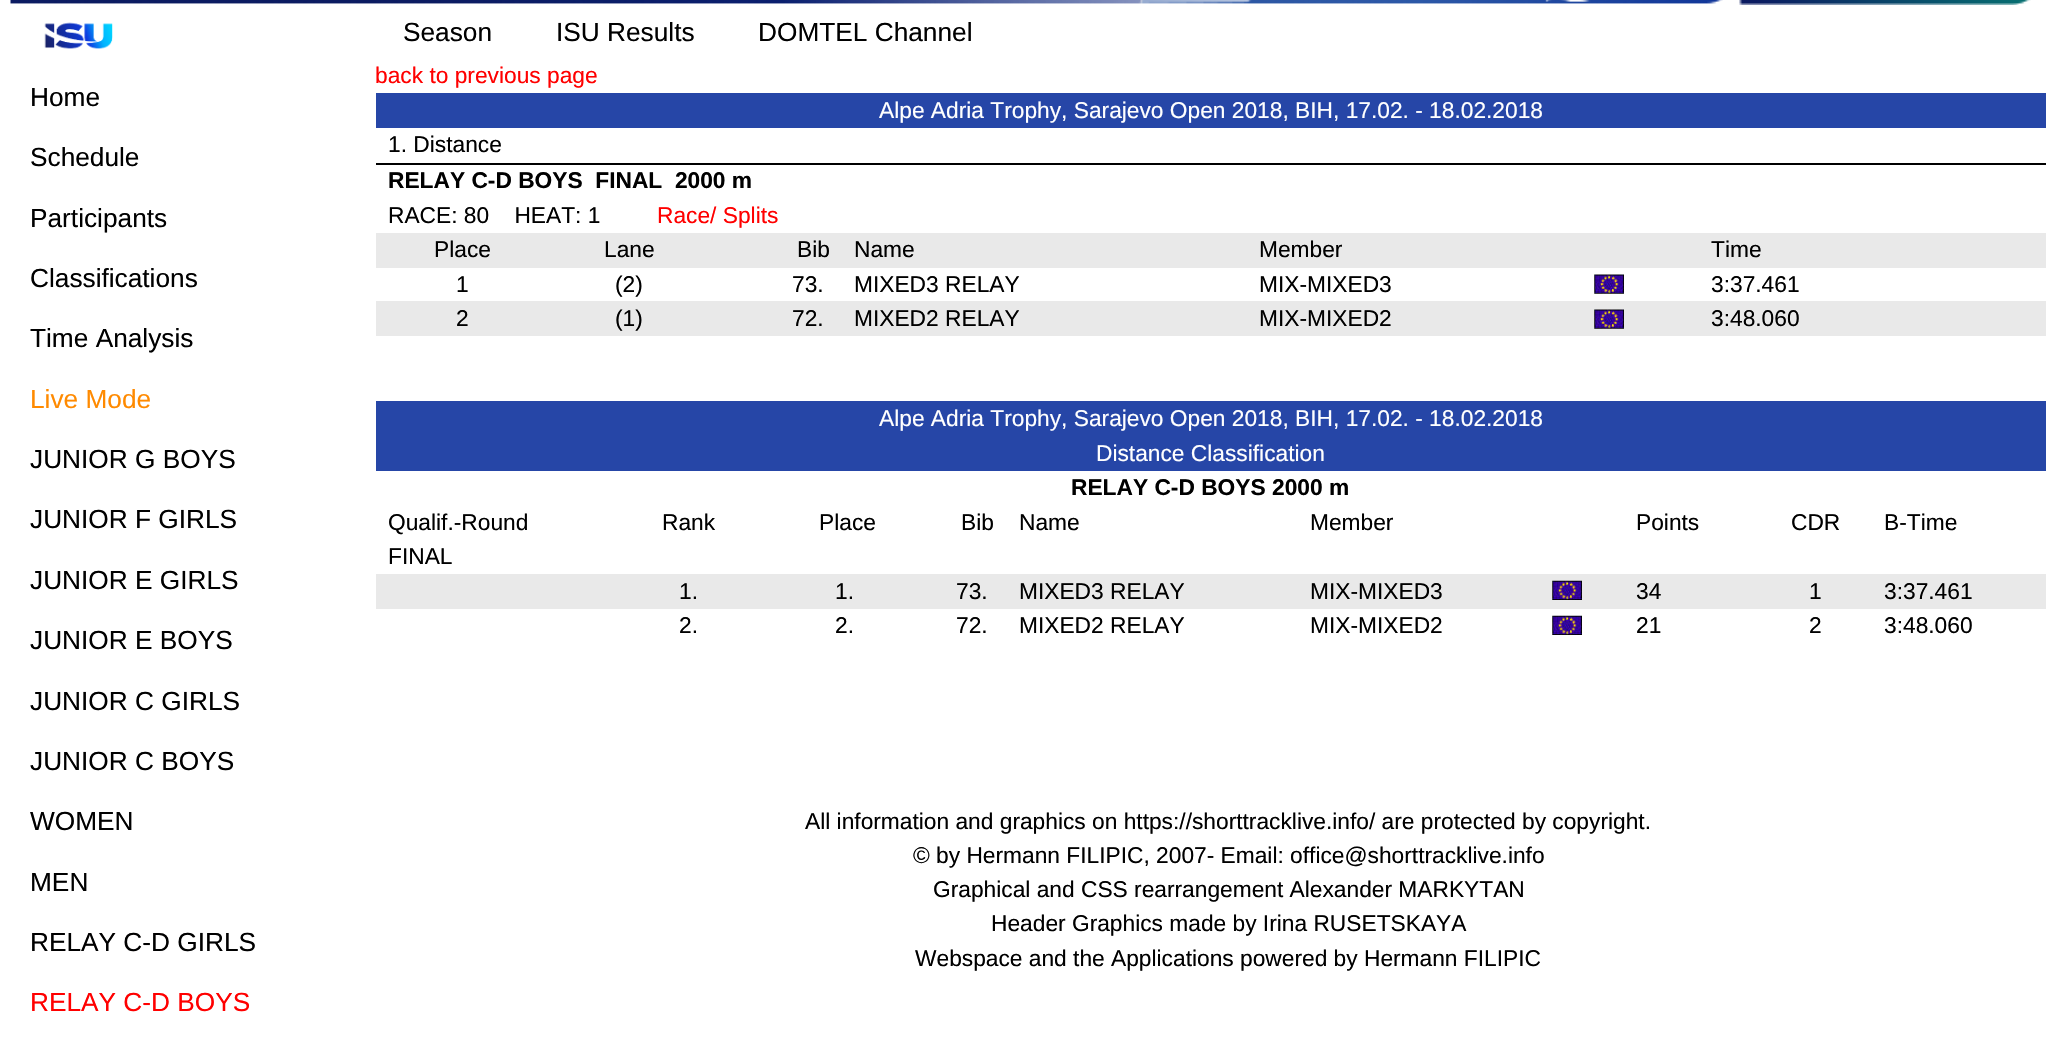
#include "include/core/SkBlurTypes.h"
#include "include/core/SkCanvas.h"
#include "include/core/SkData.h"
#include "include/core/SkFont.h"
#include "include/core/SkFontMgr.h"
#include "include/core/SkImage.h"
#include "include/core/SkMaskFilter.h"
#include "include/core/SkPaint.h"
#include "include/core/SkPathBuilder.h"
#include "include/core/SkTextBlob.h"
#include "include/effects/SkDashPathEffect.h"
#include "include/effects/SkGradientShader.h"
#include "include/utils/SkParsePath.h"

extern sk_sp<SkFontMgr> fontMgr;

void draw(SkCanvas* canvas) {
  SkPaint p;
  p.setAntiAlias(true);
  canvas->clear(SK_ColorWHITE);
  canvas->drawImageRect(SkImages::DeferredFromEncodedData(SkData::MakeFromFileName("images/1.png")), SkRect::MakeLTRB(10, 0, 1723, 4), SkSamplingOptions());
  canvas->drawImageRect(SkImages::DeferredFromEncodedData(SkData::MakeFromFileName("images/2.png")), SkRect::MakeLTRB(1739, 0, 2031, 5), SkSamplingOptions());
  p.setColor(SK_ColorBLACK);
  canvas->drawRect(SkRect::MakeLTRB(375, 163, 2046, 165), p);
  p.setColor(SK_ColorWHITE);
  canvas->drawRect(SkRect::MakeLTRB(375, 163, 376, 165), p);
  canvas->drawImageRect(SkImages::DeferredFromEncodedData(SkData::MakeFromFileName("images/3.png")), SkRect::MakeLTRB(44, 22, 113, 49), SkSamplingOptions());
  p.setColor(SkColorSetRGB(38, 70, 167));
  canvas->drawRect(SkRect::MakeLTRB(376, 93, 2046, 128), p);
  p.setColor(SkColorSetRGB(233, 233, 233));
  canvas->drawRect(SkRect::MakeLTRB(376, 233, 2046, 268), p);
  canvas->drawImageRect(SkImages::DeferredFromEncodedData(SkData::MakeFromFileName("images/4.png")), SkRect::MakeLTRB(1594, 274, 1624, 294), SkSamplingOptions());
  canvas->drawRect(SkRect::MakeLTRB(376, 301, 2046, 336), p);
  canvas->drawImageRect(SkImages::DeferredFromEncodedData(SkData::MakeFromFileName("images/5.png")), SkRect::MakeLTRB(1594, 309, 1624, 329), SkSamplingOptions());
  p.setColor(SkColorSetRGB(38, 70, 167));
  canvas->drawRect(SkRect::MakeLTRB(376, 401, 2046, 471), p);
  p.setColor(SkColorSetRGB(233, 233, 233));
  canvas->drawRect(SkRect::MakeLTRB(376, 574, 2046, 609), p);
  canvas->drawImageRect(SkImages::DeferredFromEncodedData(SkData::MakeFromFileName("images/6.png")), SkRect::MakeLTRB(1552, 580, 1582, 600), SkSamplingOptions());
  canvas->drawImageRect(SkImages::DeferredFromEncodedData(SkData::MakeFromFileName("images/7.png")), SkRect::MakeLTRB(1552, 615, 1582, 635), SkSamplingOptions());
  SkFont font1(fontMgr->matchFamilyStyle("Liberation Sans", SkFontStyle::Normal()), 26.25f);
  font1.setSubpixel(true);
  p.setColor(SK_ColorBLACK);
  canvas->drawString("Season", 403, 41, font1, p);
  canvas->drawString("ISU Results", 556, 41, font1, p);
  canvas->drawString("DOMTEL Channel", 758, 41, font1, p);
  canvas->drawString("Home", 30, 106, font1, p);
  canvas->drawString("Schedule", 30, 166, font1, p);
  canvas->drawString("Participants", 30, 227, font1, p);
  canvas->drawString("Classifications", 30, 287, font1, p);
  canvas->drawString("Time Analysis", 30, 347, font1, p);
  p.setColor(SkColorSetRGB(255, 138, 0));
  canvas->drawString("Live Mode", 30, 408, font1, p);
  p.setColor(SK_ColorBLACK);
  canvas->drawString("JUNIOR G BOYS", 30, 468, font1, p);
  canvas->drawString("JUNIOR F GIRLS", 30, 528, font1, p);
  canvas->drawString("JUNIOR E GIRLS", 30, 589, font1, p);
  canvas->drawString("JUNIOR E BOYS", 30, 649, font1, p);
  canvas->drawString("JUNIOR C GIRLS", 30, 710, font1, p);
  canvas->drawString("JUNIOR C BOYS", 30, 770, font1, p);
  canvas->drawString("WOMEN", 30, 830, font1, p);
  canvas->drawString("MEN", 30, 891, font1, p);
  canvas->drawString("RELAY C-D GIRLS", 30, 951, font1, p);
  p.setColor(SkColorSetRGB(255, 0, 0));
  canvas->drawString("RELAY C-D BOYS", 30, 1011, font1, p);
  SkFont font2(fontMgr->matchFamilyStyle("Liberation Sans", SkFontStyle::Normal()), 22.75f);
  font2.setSubpixel(true);
  canvas->drawString("back to previous page", 375, 83, font2, p);
  p.setColor(SK_ColorWHITE);
  canvas->drawString("Alpe Adria Trophy, Sarajevo Open 2018, BIH, 17.02. - 18.02.2018", 879, 118, font2, p);
  p.setColor(SK_ColorBLACK);
  canvas->drawString("1. Distance", 388, 152, font2, p);
  SkFont font3(fontMgr->matchFamilyStyle("Liberation Sans", SkFontStyle::Bold()), 22.75f);
  font3.setSubpixel(true);
  canvas->drawString("RELAY C-D BOYS  FINAL  2000 m", 388, 188, font3, p);
  canvas->drawString("RACE: 80    HEAT: 1", 388, 223, font2, p);
  p.setColor(SkColorSetRGB(255, 0, 0));
  canvas->drawString("Race/ Splits", 657, 223, font2, p);
  p.setColor(SK_ColorBLACK);
  canvas->drawString("Place", 434, 257, font2, p);
  canvas->drawString("Lane", 604, 257, font2, p);
  canvas->drawString("Bib", 797, 257, font2, p);
  canvas->drawString("Name", 854, 257, font2, p);
  canvas->drawString("Member", 1259, 257, font2, p);
  canvas->drawString("Time", 1711, 257, font2, p);
  canvas->drawString("1", 456, 292, font2, p);
  canvas->drawString("(2)", 615, 292, font2, p);
  canvas->drawString("73.", 792, 292, font2, p);
  canvas->drawString("MIXED3 RELAY", 854, 292, font2, p);
  canvas->drawString("MIX-MIXED3", 1259, 292, font2, p);
  canvas->drawString("3:37.461", 1711, 292, font2, p);
  canvas->drawString("2", 456, 326, font2, p);
  canvas->drawString("(1)", 615, 326, font2, p);
  canvas->drawString("72.", 792, 326, font2, p);
  canvas->drawString("MIXED2 RELAY", 854, 326, font2, p);
  canvas->drawString("MIX-MIXED2", 1259, 326, font2, p);
  canvas->drawString("3:48.060", 1711, 326, font2, p);
  p.setColor(SK_ColorWHITE);
  canvas->drawString("Alpe Adria Trophy, Sarajevo Open 2018, BIH, 17.02. - 18.02.2018", 879, 426, font2, p);
  canvas->drawString("Distance Classification", 1096, 461, font2, p);
  p.setColor(SK_ColorBLACK);
  canvas->drawString("RELAY C-D BOYS 2000 m", 1071, 495, font3, p);
  canvas->drawString("Qualif.-Round", 388, 530, font2, p);
  canvas->drawString("Rank", 662, 530, font2, p);
  canvas->drawString("Place", 819, 530, font2, p);
  canvas->drawString("Bib", 961, 530, font2, p);
  canvas->drawString("Name", 1019, 530, font2, p);
  canvas->drawString("Member", 1310, 530, font2, p);
  canvas->drawString("Points", 1636, 530, font2, p);
  canvas->drawString("CDR", 1791, 530, font2, p);
  canvas->drawString("B-Time", 1884, 530, font2, p);
  canvas->drawString("FINAL", 388, 564, font2, p);
  canvas->drawString("1.", 679, 599, font2, p);
  canvas->drawString("1.", 835, 599, font2, p);
  canvas->drawString("73.", 956, 599, font2, p);
  canvas->drawString("MIXED3 RELAY", 1019, 599, font2, p);
  canvas->drawString("MIX-MIXED3", 1310, 599, font2, p);
  canvas->drawString("34", 1636, 599, font2, p);
  canvas->drawString("1", 1809, 599, font2, p);
  canvas->drawString("3:37.461", 1884, 599, font2, p);
  canvas->drawString("2.", 679, 633, font2, p);
  canvas->drawString("2.", 835, 633, font2, p);
  canvas->drawString("72.", 956, 633, font2, p);
  canvas->drawString("MIXED2 RELAY", 1019, 633, font2, p);
  canvas->drawString("MIX-MIXED2", 1310, 633, font2, p);
  canvas->drawString("21", 1636, 633, font2, p);
  canvas->drawString("2", 1809, 633, font2, p);
  canvas->drawString("3:48.060", 1884, 633, font2, p);
  canvas->drawString("All information and graphics on https://shorttracklive.info/ are protected by copyright.", 805, 829, font2, p);
  canvas->drawString("© by Hermann FILIPIC, 2007- Email: office@shorttracklive.info", 913, 863, font2, p);
  canvas->drawString("Graphical and CSS rearrangement Alexander MARKYTAN", 933, 897, font2, p);
  canvas->drawString("Header Graphics made by Irina RUSETSKAYA", 991, 931, font2, p);
  canvas->drawString("Webspace and the Applications powered by Hermann FILIPIC", 915, 966, font2, p);
}
